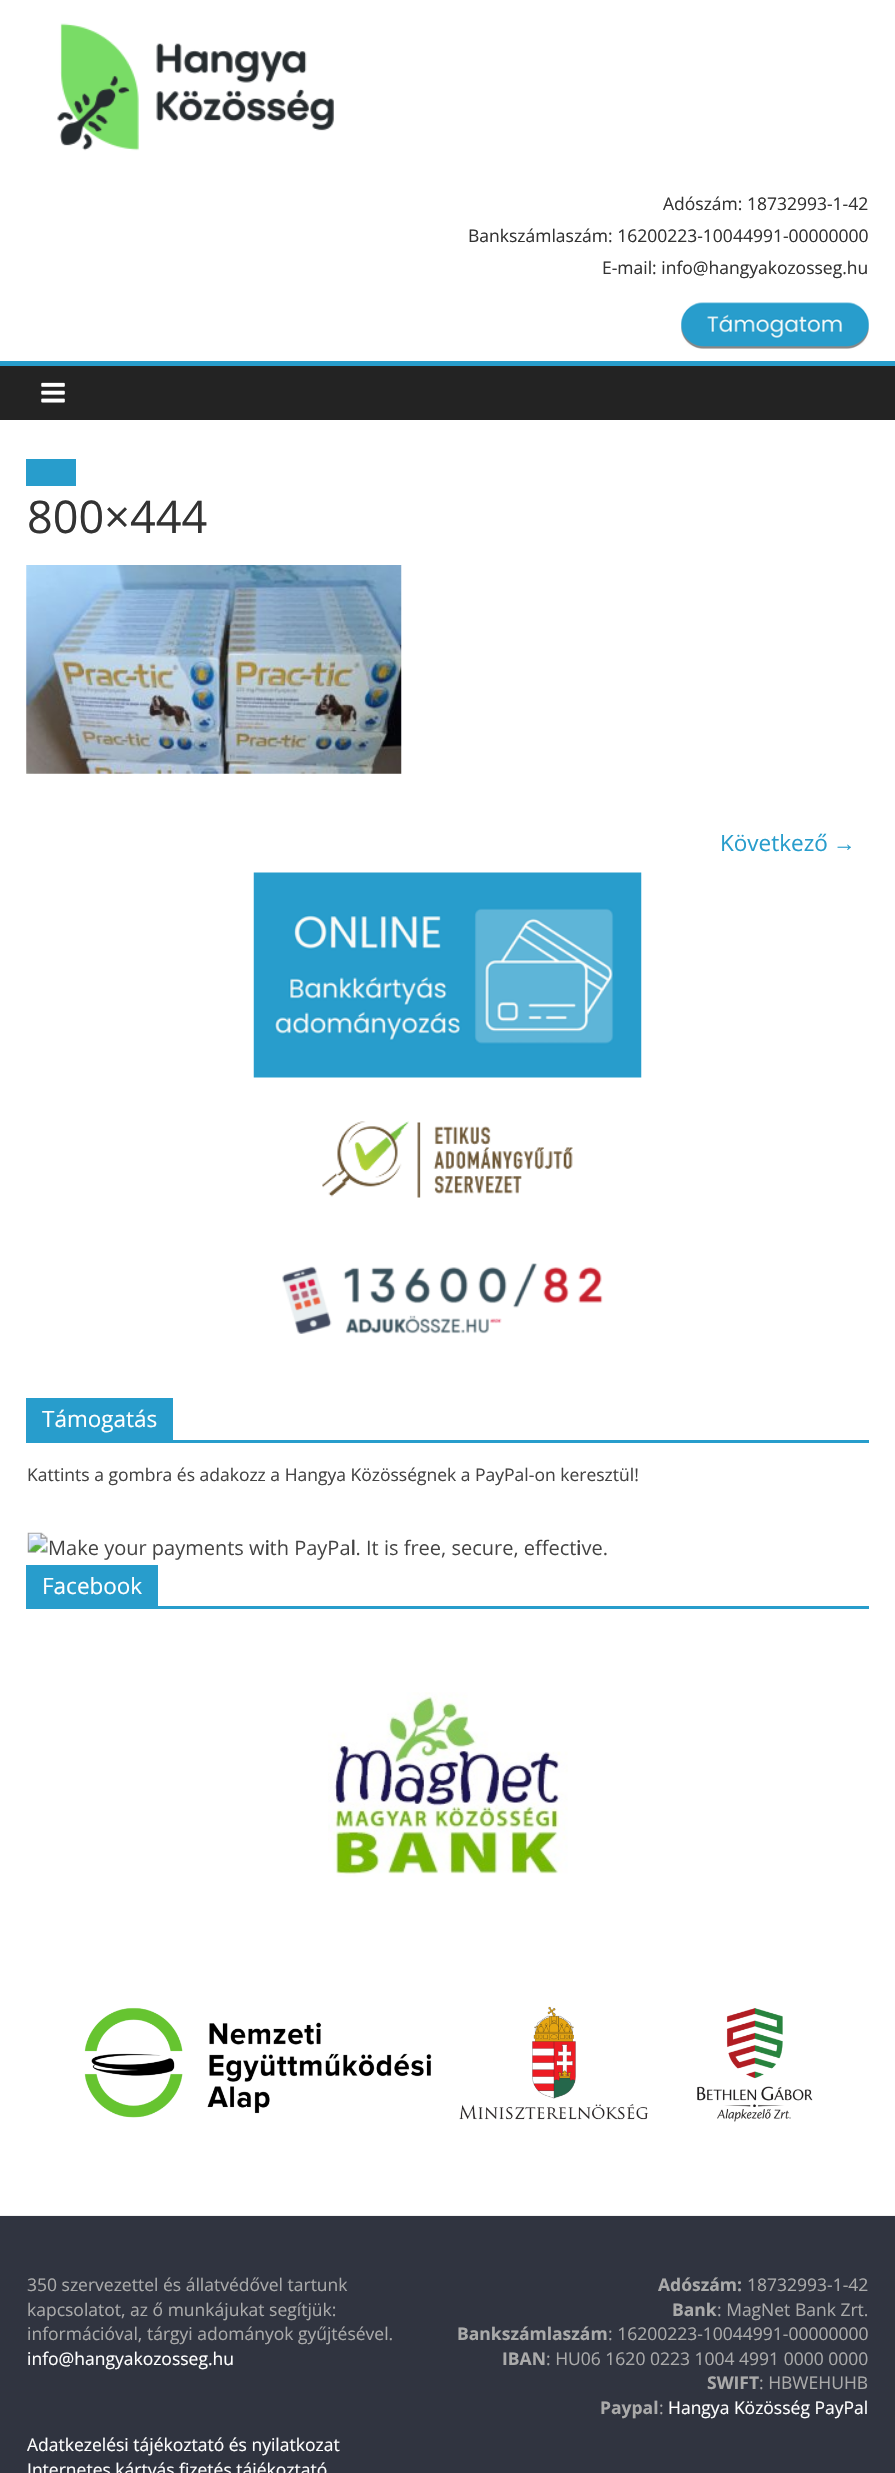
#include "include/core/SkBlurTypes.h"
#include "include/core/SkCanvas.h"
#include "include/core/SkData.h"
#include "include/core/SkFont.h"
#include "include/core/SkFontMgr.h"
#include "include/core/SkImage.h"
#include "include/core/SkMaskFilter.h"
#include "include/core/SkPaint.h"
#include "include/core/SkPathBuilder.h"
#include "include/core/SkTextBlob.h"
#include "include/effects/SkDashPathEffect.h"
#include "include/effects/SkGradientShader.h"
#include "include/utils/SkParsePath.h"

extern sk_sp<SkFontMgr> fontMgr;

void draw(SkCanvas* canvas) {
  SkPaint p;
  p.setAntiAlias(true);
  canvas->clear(SK_ColorWHITE);
  canvas->drawImageRect(SkImages::DeferredFromEncodedData(SkData::MakeFromFileName("images/1.png")), SkRect::MakeLTRB(57, 23, 334, 151), SkSamplingOptions());
  canvas->drawImageRect(SkImages::DeferredFromEncodedData(SkData::MakeFromFileName("images/2.png")), SkRect::MakeLTRB(681, 302, 869, 349), SkSamplingOptions());
  p.setColor(SkColorSetRGB(35, 35, 35));
  canvas->drawRect(SkRect::MakeLTRB(0, 366, 895, 420), p);
  p.setColor(SkColorSetRGB(40, 157, 204));
  canvas->drawRect(SkRect::MakeLTRB(0, 361, 895, 366), p);
  canvas->drawImageRect(SkImages::DeferredFromEncodedData(SkData::MakeFromFileName("images/3.png")), SkRect::MakeLTRB(41, 382, 65, 403), SkSamplingOptions());
  canvas->drawRect(SkRect::MakeLTRB(26, 459, 76, 486), p);
  canvas->drawImageRect(SkImages::DeferredFromEncodedData(SkData::MakeFromFileName("images/4.png")), SkRect::MakeLTRB(26, 565, 402, 774), SkSamplingOptions());
  canvas->drawImageRect(SkImages::DeferredFromEncodedData(SkData::MakeFromFileName("images/5.png")), SkRect::MakeLTRB(253, 872, 642, 1078), SkSamplingOptions());
  canvas->drawImageRect(SkImages::DeferredFromEncodedData(SkData::MakeFromFileName("images/6.png")), SkRect::MakeLTRB(322, 1121, 573, 1198), SkSamplingOptions());
  canvas->drawImageRect(SkImages::DeferredFromEncodedData(SkData::MakeFromFileName("images/7.png")), SkRect::MakeLTRB(282, 1263, 603, 1334), SkSamplingOptions());
  canvas->drawRect(SkRect::MakeLTRB(26, 1440, 869, 1443), p);
  canvas->drawRect(SkRect::MakeLTRB(26, 1398, 173, 1440), p);
  canvas->drawImageRect(SkImages::DeferredFromEncodedData(SkData::MakeFromFileName("images/8.png")), SkRect::MakeLTRB(27, 1532, 607, 1560), SkSamplingOptions());
  canvas->drawRect(SkRect::MakeLTRB(26, 1606, 869, 1609), p);
  canvas->drawRect(SkRect::MakeLTRB(26, 1565, 158, 1606), p);
  canvas->drawImageRect(SkImages::DeferredFromEncodedData(SkData::MakeFromFileName("images/9.png")), SkRect::MakeLTRB(328, 1692, 568, 1877), SkSamplingOptions());
  canvas->drawImageRect(SkImages::DeferredFromEncodedData(SkData::MakeFromFileName("images/10.png")), SkRect::MakeLTRB(84, 2006, 813, 2122), SkSamplingOptions());
  p.setColor(SkColorSetRGB(48, 52, 64));
  canvas->drawRect(SkRect::MakeLTRB(0, 2216, 895, 2473), p);
  p.setColor(SkColorSetRGB(242, 242, 242));
  canvas->drawRect(SkRect::MakeLTRB(0, 2215, 895, 2216), p);
  SkFont font1(fontMgr->matchFamilyStyle("Open Sans", SkFontStyle::Normal()), 17.5f);
  font1.setSubpixel(true);
  p.setColor(SkColorSetRGB(51, 51, 51));
  canvas->drawString("Adószám: 18732993-1-42", 663, 210, font1, p);
  canvas->drawString("Bankszámlaszám: 16200223-10044991-00000000", 468, 242, font1, p);
  canvas->drawString("E-mail: info@hangyakozosseg.hu", 602, 274, font1, p);
  SkFont font2(fontMgr->matchFamilyStyle("Open Sans", SkFontStyle::Normal()), 45);
  font2.setSubpixel(true);
  canvas->drawString("800×444", 27, 533, font2, p);
  SkFont font3(fontMgr->matchFamilyStyle("Open Sans", SkFontStyle::Normal()), 22.5f);
  font3.setSubpixel(true);
  p.setColor(SkColorSetRGB(40, 157, 204));
  canvas->drawString("Következő", 720, 851, font3, p);
  SkFont font4(fontMgr->matchFamilyStyle("Liberation Serif", SkFontStyle::Normal()), 22.5f);
  font4.setSubpixel(true);
  canvas->drawString("→", 833, 851, font4, p);
  p.setColor(SK_ColorWHITE);
  canvas->drawString("Támogatás", 42, 1427, font3, p);
  p.setColor(SkColorSetRGB(68, 68, 68));
  canvas->drawString("Kattints a gombra és adakozz a Hangya Közösségnek a PayPal-on keresztül!", 27, 1481, font1, p);
  SkFont font5(fontMgr->matchFamilyStyle("Open Sans", SkFontStyle::Normal()), 20);
  font5.setSubpixel(true);
  canvas->drawString("i", 265, 1555, font5, p);
  canvas->drawString("l", 351, 1555, font5, p);
  canvas->drawString("i", 576, 1555, font5, p);
  p.setColor(SK_ColorWHITE);
  canvas->drawString("Facebook", 42, 1594, font3, p);
  p.setColor(SkColorSetRGB(170, 170, 170));
  canvas->drawString("350 szervezettel és állatvédővel tartunk", 27, 2291, font1, p);
  canvas->drawString("kapcsolatot, az ő munkájukat segítjük:", 27, 2316, font1, p);
  canvas->drawString("információval, tárgyi adományok gyűjtésével.", 27, 2340, font1, p);
  p.setColor(SK_ColorWHITE);
  canvas->drawString("info@hangyakozosseg.hu", 27, 2365, font1, p);
  canvas->drawString("Adatkezelési tájékoztató és nyilatkozat", 27, 2451, font1, p);
  canvas->drawString("Internetes kártyás fizetés tájékoztató", 27, 2476, font1, p);
  SkFont font6(fontMgr->matchFamilyStyle("Open Sans", SkFontStyle::Bold()), 17.5f);
  font6.setSubpixel(true);
  p.setColor(SkColorSetRGB(170, 170, 170));
  canvas->drawString("Adószám:", 658, 2291, font6, p);
  canvas->drawString("18732993-1-42", 747, 2291, font1, p);
  canvas->drawString("Bank", 672, 2316, font6, p);
  canvas->drawString(": MagNet Bank Zrt.", 717, 2316, font1, p);
  canvas->drawString("Bankszámlaszám", 457, 2340, font6, p);
  canvas->drawString(": 16200223-10044991-00000000", 608, 2340, font1, p);
  canvas->drawString("IBAN", 502, 2365, font6, p);
  canvas->drawString(": HU06 1620 0223 1004 4991 0000 0000", 546, 2365, font1, p);
  canvas->drawString("SWIFT", 707, 2389, font6, p);
  canvas->drawString(": HBWEHUHB", 759, 2389, font1, p);
  canvas->drawString("Paypal", 600, 2414, font6, p);
  canvas->drawString(":", 659, 2414, font1, p);
  p.setColor(SK_ColorWHITE);
  canvas->drawString("Hangya Közösség PayPal", 668, 2414, font1, p);
}
